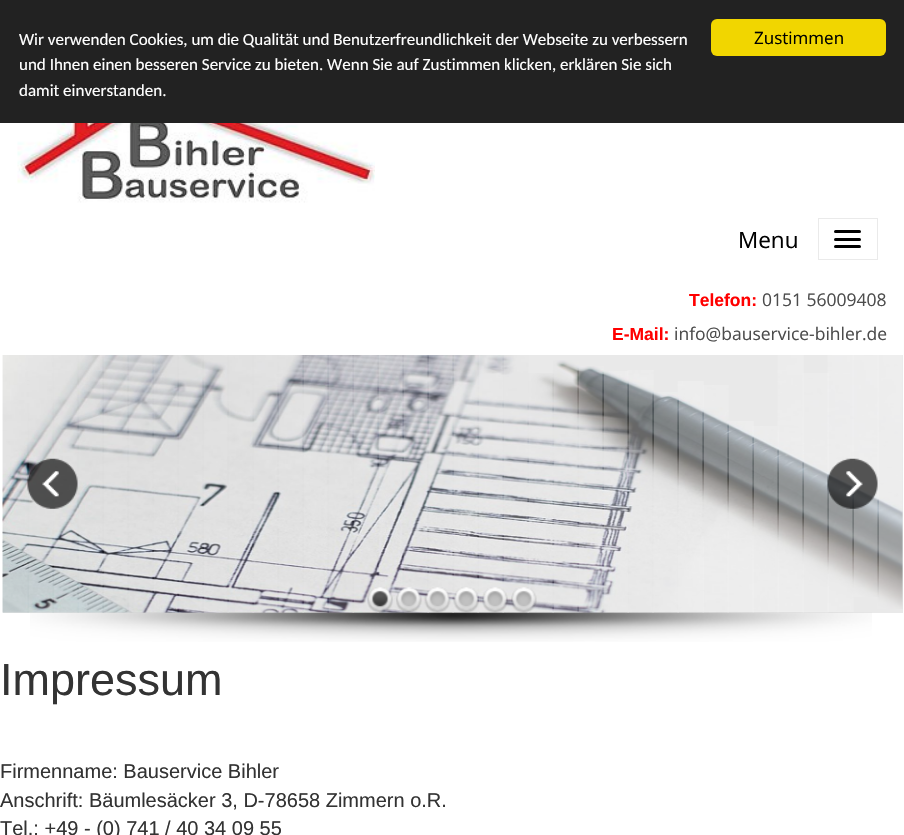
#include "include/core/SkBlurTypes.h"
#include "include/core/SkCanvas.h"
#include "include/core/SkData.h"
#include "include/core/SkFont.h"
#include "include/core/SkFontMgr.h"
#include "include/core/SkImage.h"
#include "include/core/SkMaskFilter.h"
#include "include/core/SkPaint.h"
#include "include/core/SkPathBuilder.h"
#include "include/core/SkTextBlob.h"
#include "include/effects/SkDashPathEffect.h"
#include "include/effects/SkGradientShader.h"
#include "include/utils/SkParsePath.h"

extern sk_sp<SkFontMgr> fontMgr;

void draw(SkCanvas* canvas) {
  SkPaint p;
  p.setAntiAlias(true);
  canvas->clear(SK_ColorWHITE);
  p.setColor(SkColorSetRGB(34, 34, 34));
  canvas->drawRect(SkRect::MakeLTRB(0, 0, 904, 123), p);
  p.setColor(SkColorSetRGB(241, 214, 0));
  canvas->drawRoundRect(SkRect::MakeLTRB(711, 19, 886, 56), 6, 6, p);
  canvas->drawImageRect(SkImages::DeferredFromEncodedData(SkData::MakeFromFileName("images/1.png")), SkRect::MakeLTRB(17, 123, 375, 203), SkSamplingOptions());
  p.setStyle(SkPaint::kStroke_Style);
  p.setStrokeWidth(1);
  p.setColor(SkColorSetRGB(234, 234, 234));
  canvas->drawRect(SkRect::MakeLTRB(818.5f, 218.5f, 877.5f, 259.5f), p);
  p.setStyle(SkPaint::kFill_Style);
  p.setColor(SK_ColorBLACK);
  canvas->drawRoundRect(SkRect::MakeLTRB(834, 230, 861, 233), 1.5f, 1.5f, p);
  canvas->drawRoundRect(SkRect::MakeLTRB(834, 238, 861, 241), 1.5f, 1.5f, p);
  canvas->drawRoundRect(SkRect::MakeLTRB(834, 245, 861, 248), 1.5f, 1.5f, p);
  p.setColor(SkColorSetRGB(233, 233, 233));
  canvas->drawRect(SkRect::MakeLTRB(3, 355, 903, 613), p);
  canvas->drawImageRect(SkImages::DeferredFromEncodedData(SkData::MakeFromFileName("images/2.png")), SkRect::MakeLTRB(2, 355, 29, 613), SkSamplingOptions());
  canvas->drawImageRect(SkImages::DeferredFromEncodedData(SkData::MakeFromFileName("images/46.png")), SkRect::MakeLTRB(30, 612, 872, 642), SkSamplingOptions());
  canvas->drawImageRect(SkImages::DeferredFromEncodedData(SkData::MakeFromFileName("images/3.png")), SkRect::MakeLTRB(27, 355, 54, 613), SkSamplingOptions());
  canvas->drawImageRect(SkImages::DeferredFromEncodedData(SkData::MakeFromFileName("images/4.png")), SkRect::MakeLTRB(52, 355, 79, 613), SkSamplingOptions());
  canvas->drawImageRect(SkImages::DeferredFromEncodedData(SkData::MakeFromFileName("images/5.png")), SkRect::MakeLTRB(77, 355, 104, 613), SkSamplingOptions());
  canvas->drawImageRect(SkImages::DeferredFromEncodedData(SkData::MakeFromFileName("images/6.png")), SkRect::MakeLTRB(102, 355, 129, 613), SkSamplingOptions());
  canvas->drawImageRect(SkImages::DeferredFromEncodedData(SkData::MakeFromFileName("images/7.png")), SkRect::MakeLTRB(127, 355, 154, 613), SkSamplingOptions());
  canvas->drawImageRect(SkImages::DeferredFromEncodedData(SkData::MakeFromFileName("images/8.png")), SkRect::MakeLTRB(152, 355, 179, 613), SkSamplingOptions());
  canvas->drawImageRect(SkImages::DeferredFromEncodedData(SkData::MakeFromFileName("images/9.png")), SkRect::MakeLTRB(177, 355, 204, 613), SkSamplingOptions());
  canvas->drawImageRect(SkImages::DeferredFromEncodedData(SkData::MakeFromFileName("images/10.png")), SkRect::MakeLTRB(202, 355, 229, 613), SkSamplingOptions());
  canvas->drawImageRect(SkImages::DeferredFromEncodedData(SkData::MakeFromFileName("images/11.png")), SkRect::MakeLTRB(227, 355, 254, 613), SkSamplingOptions());
  canvas->drawImageRect(SkImages::DeferredFromEncodedData(SkData::MakeFromFileName("images/12.png")), SkRect::MakeLTRB(252, 355, 279, 613), SkSamplingOptions());
  canvas->drawImageRect(SkImages::DeferredFromEncodedData(SkData::MakeFromFileName("images/13.png")), SkRect::MakeLTRB(277, 355, 304, 613), SkSamplingOptions());
  canvas->drawImageRect(SkImages::DeferredFromEncodedData(SkData::MakeFromFileName("images/14.png")), SkRect::MakeLTRB(302, 355, 329, 613), SkSamplingOptions());
  canvas->drawImageRect(SkImages::DeferredFromEncodedData(SkData::MakeFromFileName("images/15.png")), SkRect::MakeLTRB(327, 355, 354, 613), SkSamplingOptions());
  canvas->drawImageRect(SkImages::DeferredFromEncodedData(SkData::MakeFromFileName("images/16.png")), SkRect::MakeLTRB(352, 355, 379, 613), SkSamplingOptions());
  canvas->drawImageRect(SkImages::DeferredFromEncodedData(SkData::MakeFromFileName("images/17.png")), SkRect::MakeLTRB(377, 355, 404, 613), SkSamplingOptions());
  canvas->drawImageRect(SkImages::DeferredFromEncodedData(SkData::MakeFromFileName("images/18.png")), SkRect::MakeLTRB(402, 355, 429, 613), SkSamplingOptions());
  canvas->drawImageRect(SkImages::DeferredFromEncodedData(SkData::MakeFromFileName("images/19.png")), SkRect::MakeLTRB(427, 355, 454, 613), SkSamplingOptions());
  canvas->drawImageRect(SkImages::DeferredFromEncodedData(SkData::MakeFromFileName("images/20.png")), SkRect::MakeLTRB(452, 355, 479, 613), SkSamplingOptions());
  canvas->drawImageRect(SkImages::DeferredFromEncodedData(SkData::MakeFromFileName("images/21.png")), SkRect::MakeLTRB(477, 355, 504, 613), SkSamplingOptions());
  canvas->drawImageRect(SkImages::DeferredFromEncodedData(SkData::MakeFromFileName("images/22.png")), SkRect::MakeLTRB(502, 355, 529, 613), SkSamplingOptions());
  canvas->drawImageRect(SkImages::DeferredFromEncodedData(SkData::MakeFromFileName("images/23.png")), SkRect::MakeLTRB(527, 373, 554, 613), SkSamplingOptions());
  canvas->drawImageRect(SkImages::DeferredFromEncodedData(SkData::MakeFromFileName("images/24.png")), SkRect::MakeLTRB(552, 360, 579, 613), SkSamplingOptions());
  canvas->drawImageRect(SkImages::DeferredFromEncodedData(SkData::MakeFromFileName("images/25.png")), SkRect::MakeLTRB(577, 366, 604, 613), SkSamplingOptions());
  canvas->drawImageRect(SkImages::DeferredFromEncodedData(SkData::MakeFromFileName("images/26.png")), SkRect::MakeLTRB(602, 371, 629, 613), SkSamplingOptions());
  canvas->drawImageRect(SkImages::DeferredFromEncodedData(SkData::MakeFromFileName("images/27.png")), SkRect::MakeLTRB(627, 370, 654, 613), SkSamplingOptions());
  canvas->drawImageRect(SkImages::DeferredFromEncodedData(SkData::MakeFromFileName("images/28.png")), SkRect::MakeLTRB(652, 392, 679, 613), SkSamplingOptions());
  canvas->drawImageRect(SkImages::DeferredFromEncodedData(SkData::MakeFromFileName("images/29.png")), SkRect::MakeLTRB(677, 381, 704, 613), SkSamplingOptions());
  canvas->drawImageRect(SkImages::DeferredFromEncodedData(SkData::MakeFromFileName("images/30.png")), SkRect::MakeLTRB(702, 385, 729, 613), SkSamplingOptions());
  canvas->drawImageRect(SkImages::DeferredFromEncodedData(SkData::MakeFromFileName("images/31.png")), SkRect::MakeLTRB(727, 421, 754, 613), SkSamplingOptions());
  canvas->drawImageRect(SkImages::DeferredFromEncodedData(SkData::MakeFromFileName("images/32.png")), SkRect::MakeLTRB(752, 426, 779, 613), SkSamplingOptions());
  canvas->drawImageRect(SkImages::DeferredFromEncodedData(SkData::MakeFromFileName("images/33.png")), SkRect::MakeLTRB(777, 355, 804, 613), SkSamplingOptions());
  canvas->drawImageRect(SkImages::DeferredFromEncodedData(SkData::MakeFromFileName("images/34.png")), SkRect::MakeLTRB(802, 373, 829, 613), SkSamplingOptions());
  canvas->drawImageRect(SkImages::DeferredFromEncodedData(SkData::MakeFromFileName("images/35.png")), SkRect::MakeLTRB(827, 355, 854, 612), SkSamplingOptions());
  canvas->drawImageRect(SkImages::DeferredFromEncodedData(SkData::MakeFromFileName("images/36.png")), SkRect::MakeLTRB(852, 355, 879, 597), SkSamplingOptions());
  canvas->drawImageRect(SkImages::DeferredFromEncodedData(SkData::MakeFromFileName("images/37.png")), SkRect::MakeLTRB(877, 355, 903, 609), SkSamplingOptions());
  canvas->drawImageRect(SkImages::DeferredFromEncodedData(SkData::MakeFromFileName("images/38.png")), SkRect::MakeLTRB(27, 458, 78, 509), SkSamplingOptions());
  canvas->drawImageRect(SkImages::DeferredFromEncodedData(SkData::MakeFromFileName("images/39.png")), SkRect::MakeLTRB(827, 458, 878, 509), SkSamplingOptions());
  canvas->drawImageRect(SkImages::DeferredFromEncodedData(SkData::MakeFromFileName("images/40.png")), SkRect::MakeLTRB(367, 587, 393, 613), SkSamplingOptions());
  canvas->drawImageRect(SkImages::DeferredFromEncodedData(SkData::MakeFromFileName("images/41.png")), SkRect::MakeLTRB(396, 587, 422, 613), SkSamplingOptions());
  canvas->drawImageRect(SkImages::DeferredFromEncodedData(SkData::MakeFromFileName("images/42.png")), SkRect::MakeLTRB(424, 587, 451, 613), SkSamplingOptions());
  canvas->drawImageRect(SkImages::DeferredFromEncodedData(SkData::MakeFromFileName("images/43.png")), SkRect::MakeLTRB(453, 587, 479, 613), SkSamplingOptions());
  canvas->drawImageRect(SkImages::DeferredFromEncodedData(SkData::MakeFromFileName("images/44.png")), SkRect::MakeLTRB(482, 587, 508, 613), SkSamplingOptions());
  canvas->drawImageRect(SkImages::DeferredFromEncodedData(SkData::MakeFromFileName("images/45.png")), SkRect::MakeLTRB(511, 587, 537, 613), SkSamplingOptions());
  SkFont font1(fontMgr->matchFamilyStyle("Carlito", SkFontStyle::Normal()), 17);
  font1.setSubpixel(true);
  p.setColor(SK_ColorWHITE);
  canvas->drawString("Wir verwenden Cookies, um die Qualität und Benutzerfreundlichkeit der Webseite zu verbessern", 19, 45, font1, p);
  canvas->drawString("und Ihnen einen besseren Service zu bieten. Wenn Sie auf Zustimmen klicken, erklären Sie sich", 19, 70, font1, p);
  canvas->drawString("damit einverstanden.", 19, 96, font1, p);
  SkFont font2(fontMgr->matchFamilyStyle("Open Sans", SkFontStyle::Normal()), 17);
  font2.setSubpixel(true);
  p.setColor(SK_ColorBLACK);
  canvas->drawString("Zustimmen", 754, 44, font2, p);
  SkFont font3(fontMgr->matchFamilyStyle("Open Sans", SkFontStyle::Normal()), 22.5f);
  font3.setSubpixel(true);
  canvas->drawString("Menu", 738, 248, font3, p);
  SkFont font4(fontMgr->matchFamilyStyle("Liberation Sans", SkFontStyle::Bold()), 17.5f);
  font4.setSubpixel(true);
  p.setColor(SkColorSetRGB(255, 0, 0));
  canvas->drawString("Telefon:", 689, 306, font4, p);
  SkFont font5(fontMgr->matchFamilyStyle("Open Sans", SkFontStyle::Normal()), 17.5f);
  font5.setSubpixel(true);
  p.setColor(SkColorSetRGB(76, 76, 76));
  canvas->drawString("0151 56009408", 762, 306, font5, p);
  p.setColor(SkColorSetRGB(255, 0, 0));
  canvas->drawString("E-Mail:", 612, 340, font4, p);
  p.setColor(SkColorSetRGB(76, 76, 76));
  canvas->drawString("info@bauservice-bihler.de", 674, 340, font5, p);
  SkFont font6(fontMgr->matchFamilyStyle("Liberation Sans", SkFontStyle::Normal()), 45);
  font6.setSubpixel(true);
  p.setColor(SkColorSetRGB(51, 51, 51));
  canvas->drawString("Impressum", 0, 695, font6, p);
  SkFont font7(fontMgr->matchFamilyStyle("Liberation Sans", SkFontStyle::Normal()), 20);
  font7.setSubpixel(true);
  canvas->drawString("Firmenname: Bauservice Bihler", 0, 778, font7, p);
  canvas->drawString("Anschrift: Bäumlesäcker 3, D-78658 Zimmern o.R.", 0, 807, font7, p);
  canvas->drawString("Tel.: +49 - (0) 741 / 40 34 09 55", 0, 835, font7, p);
}
